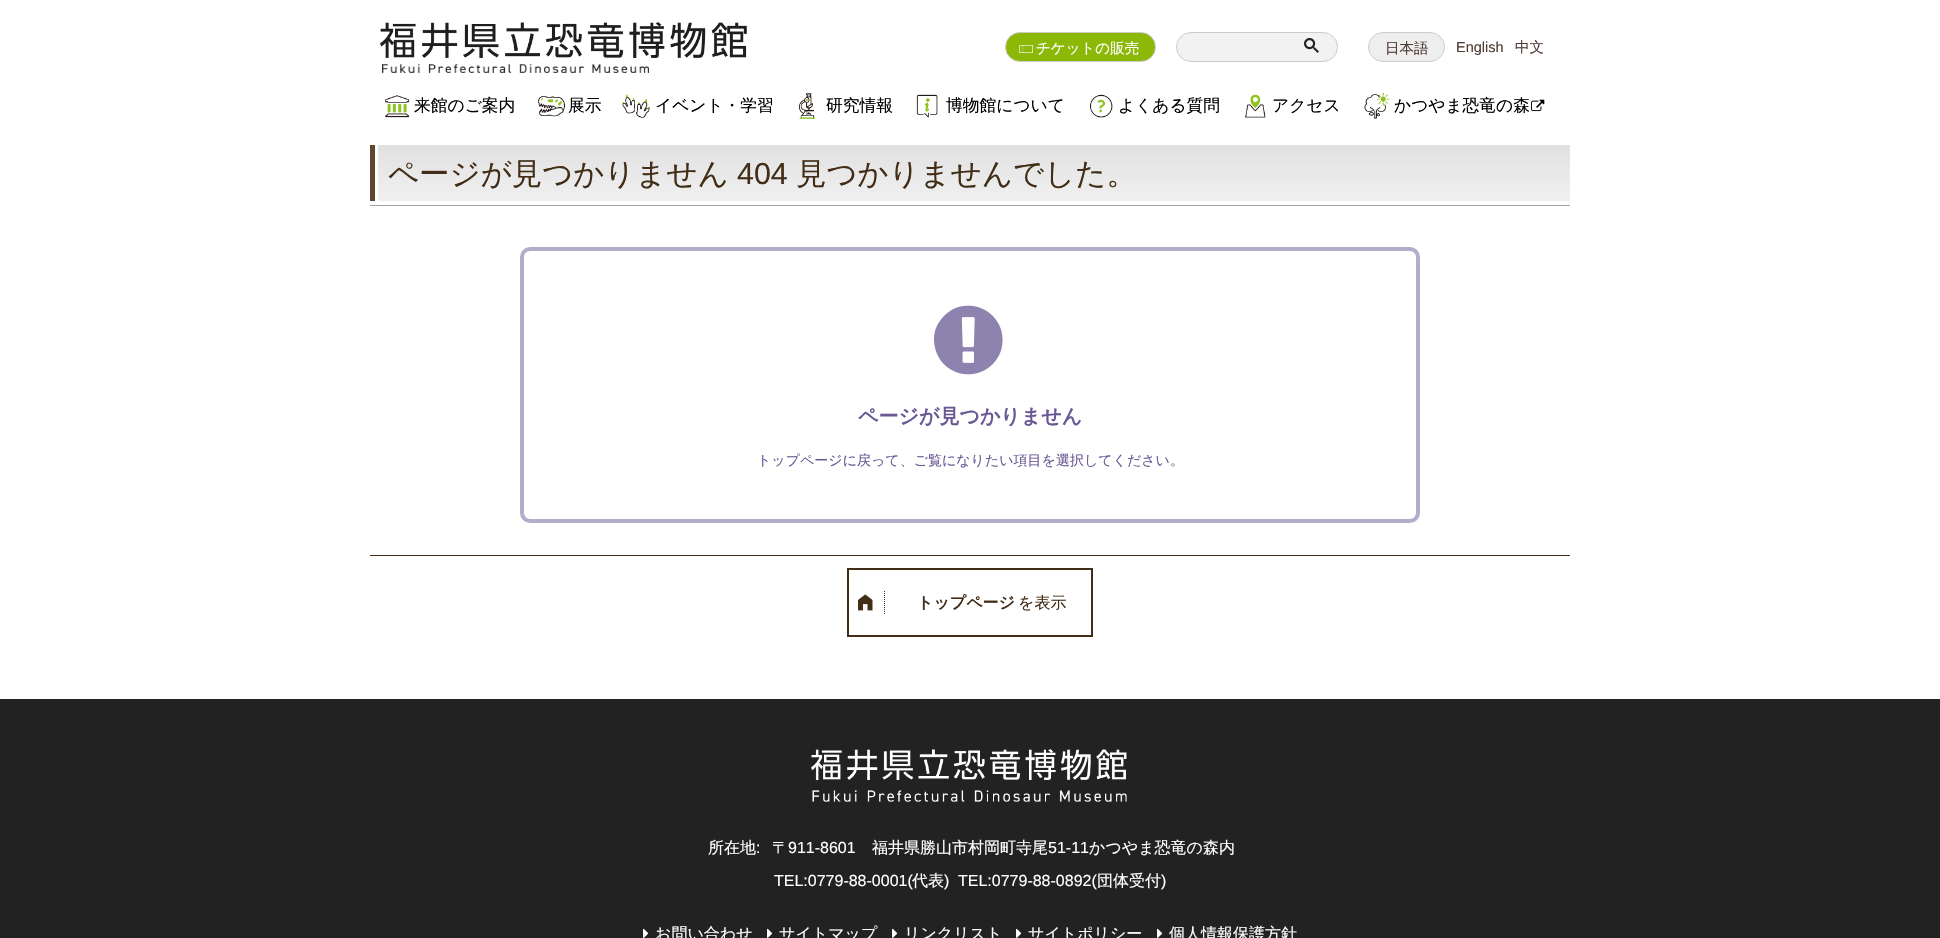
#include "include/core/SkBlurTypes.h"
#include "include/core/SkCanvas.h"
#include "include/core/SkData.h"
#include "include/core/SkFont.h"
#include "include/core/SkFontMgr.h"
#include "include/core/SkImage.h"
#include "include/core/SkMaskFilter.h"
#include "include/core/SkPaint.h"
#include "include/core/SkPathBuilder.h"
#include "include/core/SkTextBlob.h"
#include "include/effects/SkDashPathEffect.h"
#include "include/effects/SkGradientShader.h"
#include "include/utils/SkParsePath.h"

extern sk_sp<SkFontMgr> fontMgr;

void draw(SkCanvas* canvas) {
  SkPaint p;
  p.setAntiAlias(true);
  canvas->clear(SK_ColorWHITE);
  canvas->drawImageRect(SkImages::DeferredFromEncodedData(SkData::MakeFromFileName("images/1.png")), SkRect::MakeLTRB(380, 22, 747, 58), SkSamplingOptions());
  canvas->drawImageRect(SkImages::DeferredFromEncodedData(SkData::MakeFromFileName("images/2.png")), SkRect::MakeLTRB(382, 64, 649, 73), SkSamplingOptions());
  p.setColor(SkColorSetRGB(140, 184, 8));
  canvas->drawRoundRect(SkRect::MakeLTRB(1005.5f, 32.5f, 1155.5f, 61.5f), 14.5f, 14.5f, p);
  p.setStyle(SkPaint::kStroke_Style);
  p.setStrokeWidth(1);
  p.setColor(SkColorSetRGB(204, 204, 204));
  canvas->drawRoundRect(SkRect::MakeLTRB(1005.5f, 32.5f, 1155.5f, 61.5f), 14.5f, 14.5f, p);
  canvas->drawImageRect(SkImages::DeferredFromEncodedData(SkData::MakeFromFileName("images/3.png")), SkRect::MakeLTRB(1019, 45, 1033, 53), SkSamplingOptions());
  p.setStyle(SkPaint::kFill_Style);
  p.setColor(SkColorSetRGB(242, 242, 242));
  canvas->drawRoundRect(SkRect::MakeLTRB(1176.5f, 32.5f, 1337.5f, 61.5f), 14.5f, 14.5f, p);
  p.setStyle(SkPaint::kStroke_Style);
  p.setColor(SkColorSetRGB(204, 204, 204));
  canvas->drawRoundRect(SkRect::MakeLTRB(1176.5f, 32.5f, 1337.5f, 61.5f), 14.5f, 14.5f, p);
  canvas->drawImageRect(SkImages::DeferredFromEncodedData(SkData::MakeFromFileName("images/4.png")), SkRect::MakeLTRB(1304, 38, 1319, 53), SkSamplingOptions());
  p.setStyle(SkPaint::kFill_Style);
  p.setColor(SkColorSetRGB(238, 238, 238));
  canvas->drawRoundRect(SkRect::MakeLTRB(1368.5f, 32.5f, 1444.5f, 61.5f), 14.5f, 14.5f, p);
  p.setStyle(SkPaint::kStroke_Style);
  p.setColor(SkColorSetRGB(204, 204, 204));
  canvas->drawRoundRect(SkRect::MakeLTRB(1368.5f, 32.5f, 1444.5f, 61.5f), 14.5f, 14.5f, p);
  canvas->drawImageRect(SkImages::DeferredFromEncodedData(SkData::MakeFromFileName("images/5.png")), SkRect::MakeLTRB(385, 95, 410, 118), SkSamplingOptions());
  canvas->drawImageRect(SkImages::DeferredFromEncodedData(SkData::MakeFromFileName("images/6.png")), SkRect::MakeLTRB(538, 96, 565, 117), SkSamplingOptions());
  canvas->drawImageRect(SkImages::DeferredFromEncodedData(SkData::MakeFromFileName("images/7.png")), SkRect::MakeLTRB(622, 94, 651, 118), SkSamplingOptions());
  canvas->drawImageRect(SkImages::DeferredFromEncodedData(SkData::MakeFromFileName("images/8.png")), SkRect::MakeLTRB(798, 93, 816, 119), SkSamplingOptions());
  canvas->drawImageRect(SkImages::DeferredFromEncodedData(SkData::MakeFromFileName("images/9.png")), SkRect::MakeLTRB(916, 94, 938, 118), SkSamplingOptions());
  canvas->drawImageRect(SkImages::DeferredFromEncodedData(SkData::MakeFromFileName("images/10.png")), SkRect::MakeLTRB(1089, 94, 1113, 118), SkSamplingOptions());
  canvas->drawImageRect(SkImages::DeferredFromEncodedData(SkData::MakeFromFileName("images/11.png")), SkRect::MakeLTRB(1245, 94, 1266, 118), SkSamplingOptions());
  canvas->drawImageRect(SkImages::DeferredFromEncodedData(SkData::MakeFromFileName("images/12.png")), SkRect::MakeLTRB(1364, 92, 1390, 119), SkSamplingOptions());
  canvas->drawImageRect(SkImages::DeferredFromEncodedData(SkData::MakeFromFileName("images/13.png")), SkRect::MakeLTRB(1531, 99, 1545, 112), SkSamplingOptions());
  p.setStyle(SkPaint::kFill_Style);
  {
    const SkColor colors[] = {SkColorSetRGB(225, 225, 225), SkColorSetRGB(239, 240, 239)};
    const float stops[] = {0, 1};
    const SkPoint ends[] = {{974, 145}, {974, 201}};
    p.setShader(SkGradientShader::MakeLinear(ends, colors, stops, 2, SkTileMode::kClamp));
    p.setAlpha(255);
  }
  canvas->drawRect(SkRect::MakeLTRB(378, 145, 1570, 201), p);
  p.setShader(nullptr);
  p.setColor(SkColorSetRGB(94, 71, 44));
  canvas->drawRect(SkRect::MakeLTRB(370, 145, 375, 201), p);
  p.setColor(SkColorSetRGB(159, 159, 159));
  canvas->drawRect(SkRect::MakeLTRB(370, 205, 1570, 206), p);
  p.setStyle(SkPaint::kStroke_Style);
  p.setStrokeWidth(4);
  p.setColor(SkColorSetRGB(180, 172, 202));
  canvas->drawRoundRect(SkRect::MakeLTRB(522, 249, 1418, 521), 8, 8, p);
  canvas->drawImageRect(SkImages::DeferredFromEncodedData(SkData::MakeFromFileName("images/14.png")), SkRect::MakeLTRB(934, 305, 1003, 375), SkSamplingOptions());
  p.setStyle(SkPaint::kFill_Style);
  p.setColor(SkColorSetRGB(66, 45, 22));
  canvas->drawRect(SkRect::MakeLTRB(370, 555, 1570, 556), p);
  p.setStyle(SkPaint::kStroke_Style);
  p.setStrokeWidth(2);
  canvas->drawRect(SkRect::MakeLTRB(848, 569, 1092, 636), p);
  p.setStrokeWidth(1);
  p.setPathEffect(SkDashPathEffect::Make({{1, 1}}, 0));
  canvas->drawPath(SkPathBuilder().moveTo(884.5f, 591).lineTo(884.5f, 615).detach(), p);
  p.setPathEffect(nullptr);
  canvas->drawImageRect(SkImages::DeferredFromEncodedData(SkData::MakeFromFileName("images/15.png")), SkRect::MakeLTRB(858, 594, 873, 611), SkSamplingOptions());
  p.setStyle(SkPaint::kFill_Style);
  p.setColor(SkColorSetRGB(34, 34, 34));
  canvas->drawRect(SkRect::MakeLTRB(0, 699, 1940, 938), p);
  canvas->drawImageRect(SkImages::DeferredFromEncodedData(SkData::MakeFromFileName("images/16.png")), SkRect::MakeLTRB(811, 749, 1127, 802), SkSamplingOptions());
  canvas->drawImageRect(SkImages::DeferredFromEncodedData(SkData::MakeFromFileName("images/17.png")), SkRect::MakeLTRB(643, 928, 649, 938), SkSamplingOptions());
  canvas->drawImageRect(SkImages::DeferredFromEncodedData(SkData::MakeFromFileName("images/17.png")), SkRect::MakeLTRB(767, 928, 773, 938), SkSamplingOptions());
  canvas->drawImageRect(SkImages::DeferredFromEncodedData(SkData::MakeFromFileName("images/17.png")), SkRect::MakeLTRB(892, 928, 898, 938), SkSamplingOptions());
  canvas->drawImageRect(SkImages::DeferredFromEncodedData(SkData::MakeFromFileName("images/17.png")), SkRect::MakeLTRB(1016, 928, 1022, 938), SkSamplingOptions());
  canvas->drawImageRect(SkImages::DeferredFromEncodedData(SkData::MakeFromFileName("images/17.png")), SkRect::MakeLTRB(1157, 928, 1163, 938), SkSamplingOptions());
  SkFont font1(fontMgr->matchFamilyStyle("WenQuanYi Zen Hei", SkFontStyle(500, SkFontStyle::kNormal_Width, SkFontStyle::kUpright_Slant)), 14.5f);
  font1.setSubpixel(true);
  p.setColor(SK_ColorWHITE);
  canvas->drawString("チケットの販売", 1036, 53, font1, p);
  p.setColor(SkColorSetRGB(78, 60, 51));
  canvas->drawString("日本語", 1385, 53, font1, p);
  SkFont font2(fontMgr->matchFamilyStyle("Liberation Sans", SkFontStyle::Normal()), 14.5f);
  font2.setSubpixel(true);
  canvas->drawString("English", 1456, 52, font2, p);
  canvas->drawString("中文", 1515, 52, font1, p);
  SkFont font3(fontMgr->matchFamilyStyle("WenQuanYi Zen Hei", SkFontStyle(500, SkFontStyle::kNormal_Width, SkFontStyle::kUpright_Slant)), 16.75f);
  font3.setSubpixel(true);
  p.setColor(SK_ColorBLACK);
  canvas->drawString("来館のご案内", 414, 111, font3, p);
  canvas->drawString("展示", 568, 111, font3, p);
  canvas->drawString("イベント・学習", 655, 111, font3, p);
  canvas->drawString("研究情報", 826, 111, font3, p);
  canvas->drawString("博物館について", 946, 111, font3, p);
  canvas->drawString("よくある質問", 1118, 111, font3, p);
  canvas->drawString("アクセス", 1272, 111, font3, p);
  canvas->drawString("かつやま恐竜の森", 1394, 111, font3, p);
  SkFont font4(fontMgr->matchFamilyStyle("WenQuanYi Zen Hei", SkFontStyle(500, SkFontStyle::kNormal_Width, SkFontStyle::kUpright_Slant)), 30.4f);
  font4.setSubpixel(true);
  p.setColor(SkColorSetRGB(66, 45, 22));
  canvas->drawString("ページが見つかりません", 388, 184, font4, p);
  SkFont font5(fontMgr->matchFamilyStyle("Liberation Sans", SkFontStyle::Normal()), 30.4f);
  font5.setSubpixel(true);
  canvas->drawString("404", 737, 184, font5, p);
  canvas->drawString("見つかりませんでした。", 796, 184, font4, p);
  SkFont font6(fontMgr->matchFamilyStyle("WenQuanYi Zen Hei", SkFontStyle::Bold()), 20);
  font6.setSubpixel(true);
  p.setColor(SkColorSetRGB(104, 88, 148));
  canvas->drawString("ページが見つかりません", 858, 423, font6, p);
  SkFont font7(fontMgr->matchFamilyStyle("WenQuanYi Zen Hei", SkFontStyle(500, SkFontStyle::kNormal_Width, SkFontStyle::kUpright_Slant)), 14);
  font7.setSubpixel(true);
  canvas->drawString("トップページに戻って、ご覧になりたい項目を選択してください。", 757, 465, font7, p);
  SkFont font8(fontMgr->matchFamilyStyle("WenQuanYi Zen Hei", SkFontStyle::Bold()), 16);
  font8.setSubpixel(true);
  p.setColor(SkColorSetRGB(66, 45, 22));
  canvas->drawString("トップページ", 917, 608, font8, p);
  SkFont font9(fontMgr->matchFamilyStyle("WenQuanYi Zen Hei", SkFontStyle(500, SkFontStyle::kNormal_Width, SkFontStyle::kUpright_Slant)), 16);
  font9.setSubpixel(true);
  canvas->drawString("を表示", 1018, 608, font9, p);
  p.setColor(SK_ColorWHITE);
  canvas->drawString("所在地", 708, 853, font9, p);
  SkFont font10(fontMgr->matchFamilyStyle("Liberation Sans", SkFontStyle::Normal()), 16);
  font10.setSubpixel(true);
  canvas->drawString(":", 756, 853, font10, p);
  canvas->drawString("〒", 772, 853, font9, p);
  canvas->drawString("911-8601", 788, 853, font10, p);
  canvas->drawString("福井県勝山市村岡町寺尾", 872, 853, font9, p);
  canvas->drawString("51-11", 1048, 853, font10, p);
  canvas->drawString("かつやま恐竜の森内", 1089, 853, font9, p);
  canvas->drawString("TEL:0779-88-0001(", 774, 886, font10, p);
  canvas->drawString("代表", 912, 886, font9, p);
  canvas->drawString(")", 944, 886, font10, p);
  canvas->drawString("TEL:0779-88-0892(", 958, 886, font10, p);
  canvas->drawString("団体受付", 1097, 886, font9, p);
  canvas->drawString(")", 1161, 886, font10, p);
  canvas->drawString("お問い合わせ", 655, 939, font9, p);
  canvas->drawString("サイトマップ", 779, 939, font9, p);
  canvas->drawString("リンクリスト", 904, 939, font9, p);
  canvas->drawString("サイトポリシー", 1028, 939, font9, p);
  canvas->drawString("個人情報保護方針", 1169, 939, font9, p);
}
